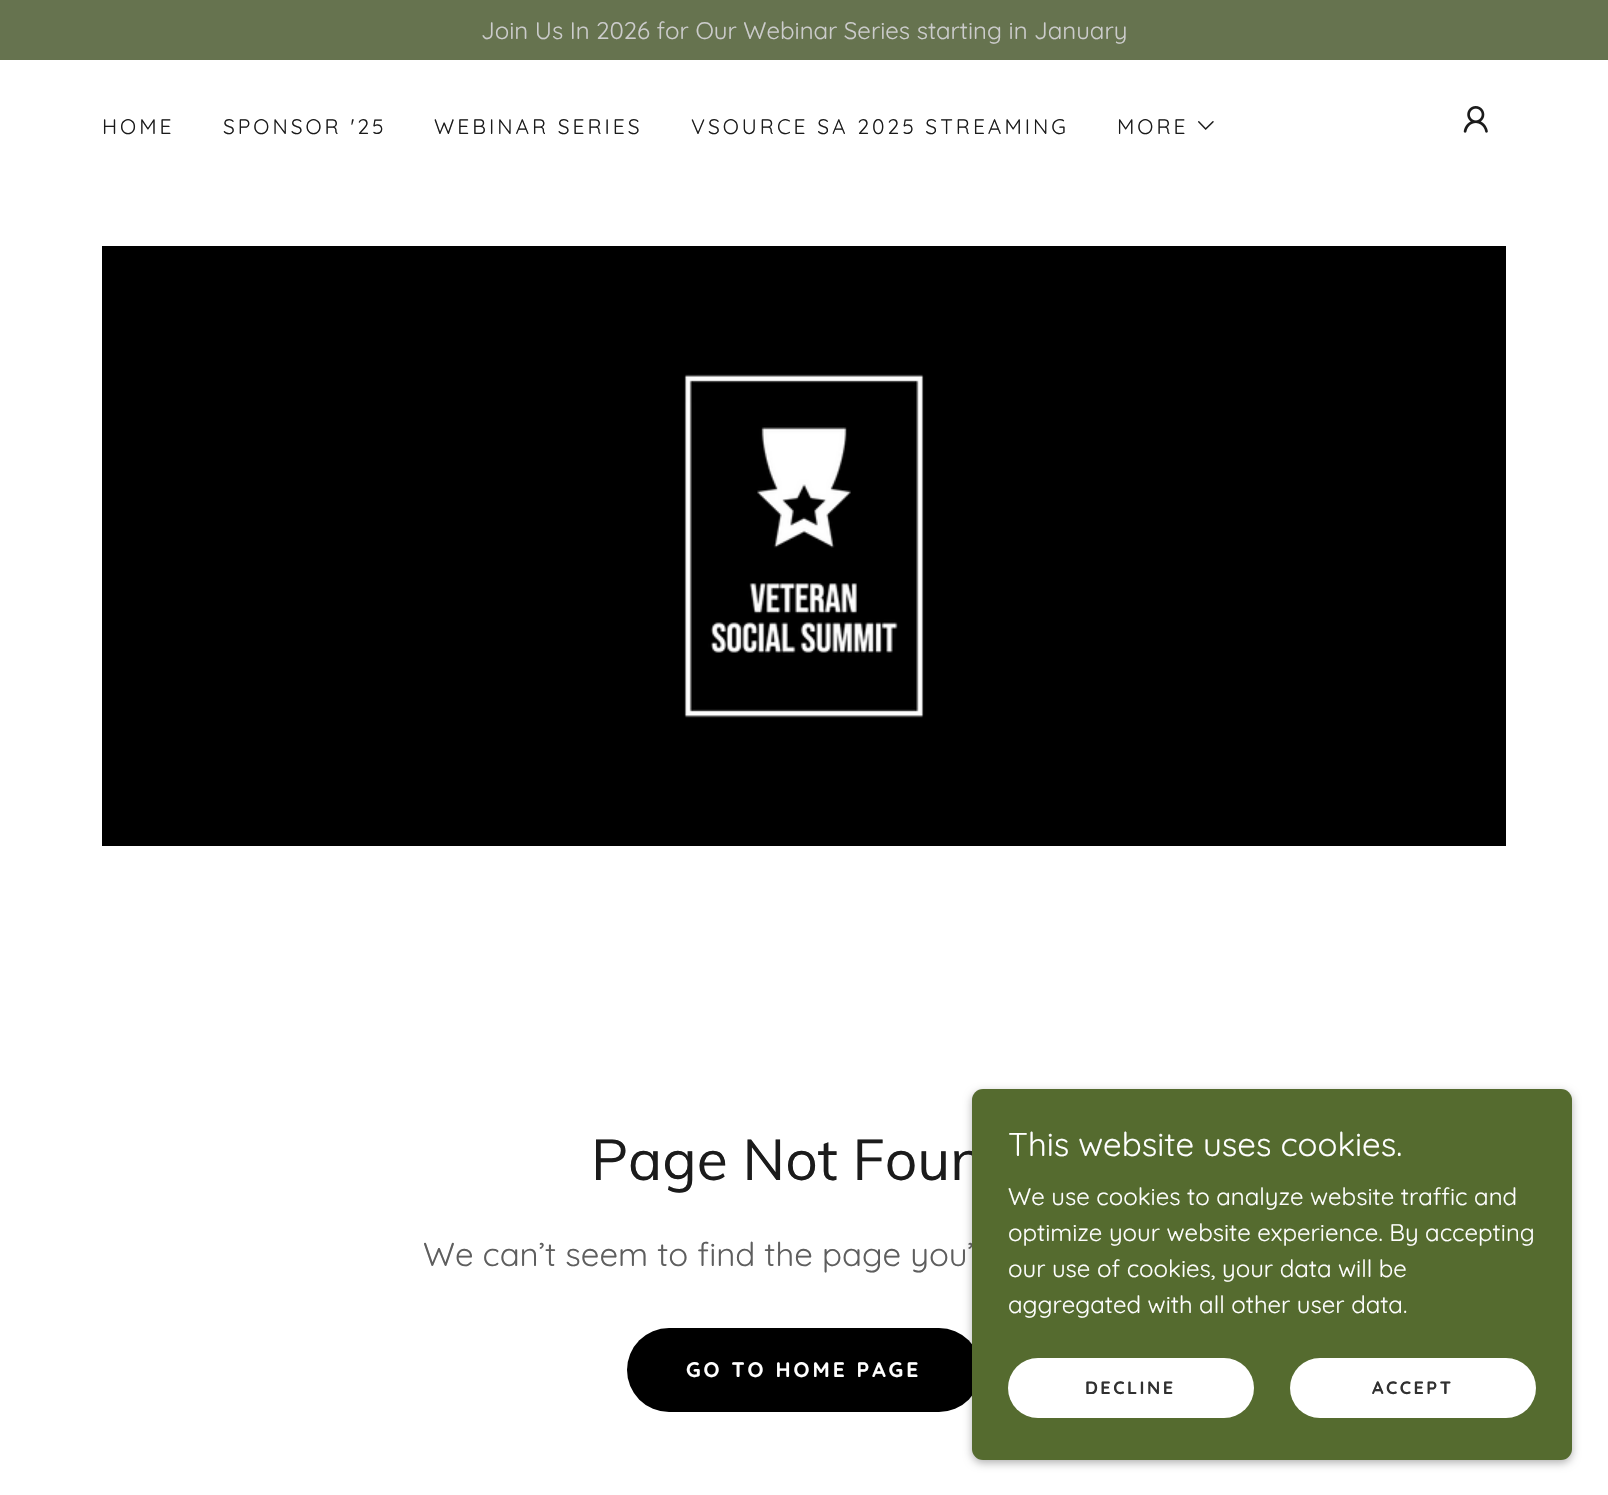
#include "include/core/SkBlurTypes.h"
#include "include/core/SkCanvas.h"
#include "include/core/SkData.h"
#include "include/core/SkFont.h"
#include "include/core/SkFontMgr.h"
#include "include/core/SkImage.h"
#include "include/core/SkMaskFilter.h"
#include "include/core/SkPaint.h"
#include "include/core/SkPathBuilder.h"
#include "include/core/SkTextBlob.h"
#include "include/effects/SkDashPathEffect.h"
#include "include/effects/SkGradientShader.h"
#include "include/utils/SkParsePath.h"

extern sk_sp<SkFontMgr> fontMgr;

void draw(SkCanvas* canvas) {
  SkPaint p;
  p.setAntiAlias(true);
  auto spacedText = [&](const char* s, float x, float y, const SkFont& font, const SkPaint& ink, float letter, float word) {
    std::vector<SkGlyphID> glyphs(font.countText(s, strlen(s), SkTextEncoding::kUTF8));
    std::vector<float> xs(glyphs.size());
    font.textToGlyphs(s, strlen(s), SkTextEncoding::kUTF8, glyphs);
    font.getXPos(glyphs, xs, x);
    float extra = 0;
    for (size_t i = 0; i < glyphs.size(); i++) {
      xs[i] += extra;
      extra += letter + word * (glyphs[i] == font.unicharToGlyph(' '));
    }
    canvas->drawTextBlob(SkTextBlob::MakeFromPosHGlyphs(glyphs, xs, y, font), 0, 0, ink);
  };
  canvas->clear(SK_ColorWHITE);
  p.setColor(SkColorSetRGB(102, 115, 79));
  canvas->drawRect(SkRect::MakeLTRB(0, 0, 1608, 60), p);
  canvas->drawImageRect(SkImages::DeferredFromEncodedData(SkData::MakeFromFileName("images/1.png")), SkRect::MakeLTRB(1198, 121, 1214, 130), SkSamplingOptions());
  canvas->drawImageRect(SkImages::DeferredFromEncodedData(SkData::MakeFromFileName("images/2.png")), SkRect::MakeLTRB(1463, 106, 1488, 133), SkSamplingOptions());
  p.setColor(SK_ColorBLACK);
  canvas->drawRect(SkRect::MakeLTRB(102, 246, 1506, 846), p);
  canvas->drawImageRect(SkImages::DeferredFromEncodedData(SkData::MakeFromFileName("images/3.png")), SkRect::MakeLTRB(684, 374, 924, 718), SkSamplingOptions());
  canvas->drawRoundRect(SkRect::MakeLTRB(627, 1328, 981, 1412), 42, 42, p);
  p.setColor(SkColorSetARGB(77, 0, 0, 0));
  p.setMaskFilter(SkMaskFilter::MakeBlur(kNormal_SkBlurStyle, 4.5f));
  canvas->drawRoundRect(SkRect::MakeLTRB(972, 1092, 1572, 1463), 11, 11, p);
  p.setMaskFilter(nullptr);
  SkFont font1(fontMgr->matchFamilyStyle("Quicksand", SkFontStyle::Normal()), 24);
  font1.setSubpixel(true);
  p.setColor(SkColorSetRGB(204, 204, 204));
  canvas->drawString("Join Us In 2026 for Our Webinar Series starting in January", 481, 39, font1, p);
  SkFont font2(fontMgr->matchFamilyStyle("Quicksand", SkFontStyle::Normal()), 21);
  font2.setSubpixel(true);
  p.setColor(SkColorSetRGB(27, 27, 27));
  spacedText("HOME", 102, 134, font2, p, 3, 0);
  spacedText("SPONSOR '25", 223, 134, font2, p, 3, 0);
  spacedText("WEBINAR SERIES", 434, 134, font2, p, 3, 0);
  spacedText("VSOURCE SA 2025 STREAMING", 691, 134, font2, p, 3, 0);
  spacedText("MORE", 1117, 134, font2, p, 3, 0);
  SkFont font3(fontMgr->matchFamilyStyle("Muli", SkFontStyle::Normal()), 57);
  font3.setSubpixel(true);
  canvas->drawString("Page Not Foun", 591, 1180, font3, p);
  SkFont font4(fontMgr->matchFamilyStyle("Quicksand", SkFontStyle::Normal()), 33);
  font4.setSubpixel(true);
  p.setColor(SkColorSetRGB(94, 94, 94));
  canvas->drawString("We can’t seem to find the page you’", 423, 1266, font4, p);
  SkFont font5(fontMgr->matchFamilyStyle("Quicksand", SkFontStyle::Bold()), 21);
  font5.setSubpixel(true);
  p.setColor(SK_ColorWHITE);
  spacedText("GO TO HOME PAGE", 686, 1377, font5, p, 3, 0);
  p.setColor(SkColorSetRGB(85, 107, 47));
  canvas->drawRoundRect(SkRect::MakeLTRB(972, 1089, 1572, 1460), 11, 11, p);
  p.setColor(SK_ColorWHITE);
  canvas->drawString("This website uses cookies.", 1008, 1156, font4, p);
  canvas->drawString("We use cookies to analyze website traffic and", 1008, 1205, font1, p);
  canvas->drawString("optimize your website experience. By accepting", 1008, 1241, font1, p);
  canvas->drawString("our use of cookies, your data will be", 1008, 1277, font1, p);
  canvas->drawString("aggregated with all other user data.", 1008, 1313, font1, p);
  canvas->drawRoundRect(SkRect::MakeLTRB(1008, 1358, 1254, 1418), 30, 30, p);
  SkFont font6(fontMgr->matchFamilyStyle("Quicksand", SkFontStyle::Bold()), 18);
  font6.setSubpixel(true);
  p.setColor(SkColorSetRGB(48, 48, 48));
  spacedText("DECLINE", 1085, 1394, font6, p, 2.5f, 0);
  p.setColor(SK_ColorWHITE);
  canvas->drawRoundRect(SkRect::MakeLTRB(1290, 1358, 1536, 1418), 30, 30, p);
  p.setColor(SkColorSetRGB(48, 48, 48));
  spacedText("ACCEPT", 1372, 1394, font6, p, 2.5f, 0);
}
